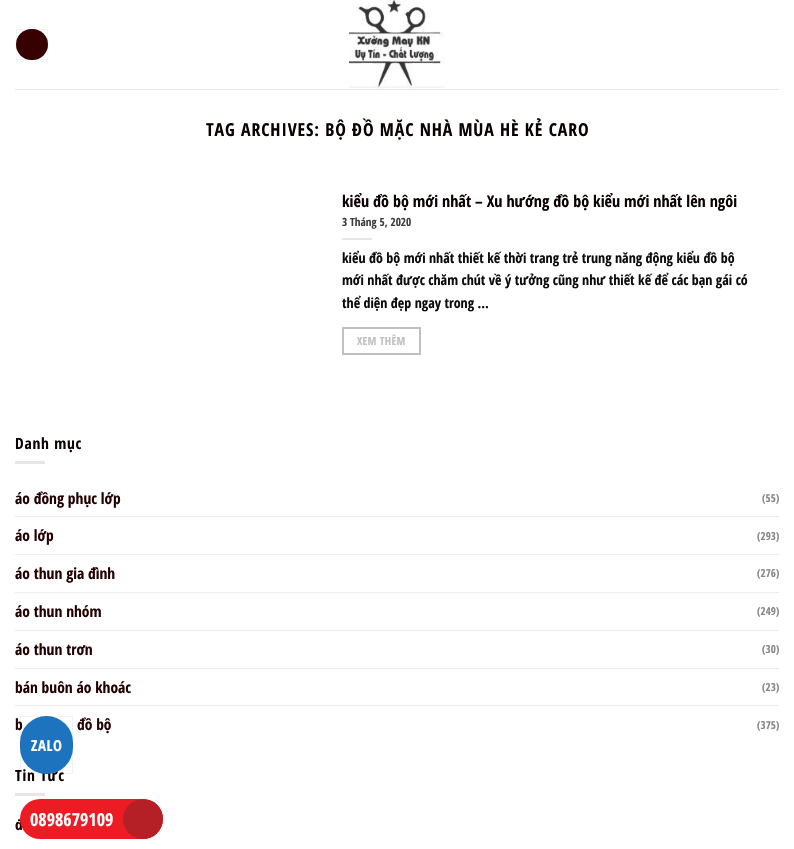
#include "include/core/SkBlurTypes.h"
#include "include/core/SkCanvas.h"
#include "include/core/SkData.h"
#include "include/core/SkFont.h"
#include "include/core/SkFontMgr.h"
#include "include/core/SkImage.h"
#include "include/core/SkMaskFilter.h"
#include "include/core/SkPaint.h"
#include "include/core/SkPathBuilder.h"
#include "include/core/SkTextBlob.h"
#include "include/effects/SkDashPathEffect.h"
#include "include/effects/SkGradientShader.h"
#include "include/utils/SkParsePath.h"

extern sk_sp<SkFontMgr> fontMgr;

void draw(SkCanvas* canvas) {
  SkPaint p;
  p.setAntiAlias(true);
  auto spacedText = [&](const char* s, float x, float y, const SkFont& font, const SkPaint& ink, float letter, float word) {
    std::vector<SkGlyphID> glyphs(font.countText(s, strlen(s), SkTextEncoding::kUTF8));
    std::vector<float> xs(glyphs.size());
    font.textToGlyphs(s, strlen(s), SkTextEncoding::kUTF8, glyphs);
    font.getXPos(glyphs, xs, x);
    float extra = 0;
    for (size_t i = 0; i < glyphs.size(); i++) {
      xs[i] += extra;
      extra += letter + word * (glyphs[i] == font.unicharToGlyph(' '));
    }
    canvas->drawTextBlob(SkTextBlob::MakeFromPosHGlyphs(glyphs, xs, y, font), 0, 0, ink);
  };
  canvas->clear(SK_ColorWHITE);
  p.setColor(SkColorSetRGB(56, 1, 1));
  canvas->drawRoundRect(SkRect::MakeLTRB(16, 29, 48, 60), 15.5f, 15.5f, p);
  p.setStyle(SkPaint::kStroke_Style);
  p.setStrokeWidth(1);
  p.setColor(SkColorSetARGB(13, 0, 0, 0));
  canvas->drawRect(SkRect::MakeLTRB(16.5f, 29.5f, 47.5f, 59.5f), p);
  canvas->drawImageRect(SkImages::DeferredFromEncodedData(SkData::MakeFromFileName("images/1.png")), SkRect::MakeLTRB(349, 0, 445, 89), SkSamplingOptions());
  p.setStyle(SkPaint::kFill_Style);
  p.setColor(SkColorSetRGB(231, 231, 231));
  canvas->drawRect(SkRect::MakeLTRB(15, 89, 779, 90), p);
  p.setColor(SkColorSetRGB(230, 230, 230));
  canvas->drawRect(SkRect::MakeLTRB(342, 238, 372, 240), p);
  p.setStyle(SkPaint::kStroke_Style);
  p.setStrokeWidth(2);
  p.setColor(SkColorSetRGB(192, 192, 192));
  canvas->drawRect(SkRect::MakeLTRB(343, 328, 420, 354), p);
  p.setStyle(SkPaint::kFill_Style);
  p.setColor(SkColorSetRGB(230, 230, 230));
  canvas->drawRect(SkRect::MakeLTRB(15, 461, 45, 464), p);
  p.setColor(SkColorSetRGB(236, 236, 236));
  canvas->drawRect(SkRect::MakeLTRB(15, 516, 779, 517), p);
  canvas->drawRect(SkRect::MakeLTRB(15, 554, 779, 555), p);
  canvas->drawRect(SkRect::MakeLTRB(15, 592, 779, 593), p);
  canvas->drawRect(SkRect::MakeLTRB(15, 630, 779, 631), p);
  canvas->drawRect(SkRect::MakeLTRB(15, 668, 779, 669), p);
  canvas->drawRect(SkRect::MakeLTRB(15, 705, 779, 706), p);
  p.setColor(SkColorSetRGB(230, 230, 230));
  canvas->drawRect(SkRect::MakeLTRB(15, 793, 45, 796), p);
  SkFont font1(fontMgr->matchFamilyStyle("Open Sans Condensed", SkFontStyle::Bold()), 17.85f);
  font1.setSubpixel(true);
  p.setColor(SkColorSetRGB(10, 0, 0));
  spacedText("TAG ARCHIVES: BỘ ĐỒ MẶC NHÀ MÙA HÈ KẺ CARO", 206, 136, font1, p, 0.9f, 0);
  SkFont font2(fontMgr->matchFamilyStyle("Open Sans Condensed", SkFontStyle::Bold()), 16.1f);
  font2.setSubpixel(true);
  canvas->drawString("kiểu đồ bộ mới nhất – Xu hướng đồ bộ kiểu mới nhất lên ngôi", 342, 207, font2, p);
  SkFont font3(fontMgr->matchFamilyStyle("Open Sans Condensed", SkFontStyle::Bold()), 11.25f);
  font3.setSubpixel(true);
  p.setColor(SkColorSetRGB(61, 61, 61));
  canvas->drawString("3 Tháng 5, 2020", 342, 226, font3, p);
  SkFont font4(fontMgr->matchFamilyStyle("Open Sans Condensed", SkFontStyle::Bold()), 14);
  font4.setSubpixel(true);
  p.setColor(SkColorSetRGB(12, 12, 12));
  canvas->drawString("kiểu đồ bộ mới nhất thiết kế thời trang trẻ trung năng động kiểu đồ bộ", 342, 263, font4, p);
  canvas->drawString("mới nhất được chăm chút về ý tưởng cũng như thiết kế để các bạn gái có", 342, 285, font4, p);
  canvas->drawString("thể diện đẹp ngay trong ...", 342, 308, font4, p);
  p.setColor(SkColorSetRGB(192, 192, 192));
  spacedText("XEM THÊM", 357, 345, font3, p, 0.25f, 0);
  SkFont font5(fontMgr->matchFamilyStyle("Open Sans Condensed", SkFontStyle::Bold()), 15.5f);
  font5.setSubpixel(true);
  p.setColor(SkColorSetRGB(10, 0, 0));
  spacedText("Danh mục", 15, 449, font5, p, 0.75f, 0);
  p.setColor(SkColorSetRGB(35, 0, 0));
  canvas->drawString("áo đồng phục lớp", 15, 504, font5, p);
  SkFont font6(fontMgr->matchFamilyStyle("Open Sans Condensed", SkFontStyle::Bold()), 11);
  font6.setSubpixel(true);
  p.setColor(SkColorSetRGB(134, 134, 134));
  canvas->drawString("(55)", 762, 502, font6, p);
  p.setColor(SkColorSetRGB(35, 0, 0));
  canvas->drawString("áo lớp", 15, 541, font5, p);
  p.setColor(SkColorSetRGB(134, 134, 134));
  canvas->drawString("(293)", 757, 540, font6, p);
  p.setColor(SkColorSetRGB(35, 0, 0));
  canvas->drawString("áo thun gia đình", 15, 579, font5, p);
  p.setColor(SkColorSetRGB(134, 134, 134));
  canvas->drawString("(276)", 757, 577, font6, p);
  p.setColor(SkColorSetRGB(35, 0, 0));
  canvas->drawString("áo thun nhóm", 15, 617, font5, p);
  p.setColor(SkColorSetRGB(134, 134, 134));
  canvas->drawString("(249)", 757, 615, font6, p);
  p.setColor(SkColorSetRGB(35, 0, 0));
  canvas->drawString("áo thun trơn", 15, 655, font5, p);
  p.setColor(SkColorSetRGB(134, 134, 134));
  canvas->drawString("(30)", 762, 653, font6, p);
  p.setColor(SkColorSetRGB(35, 0, 0));
  canvas->drawString("bán buôn áo khoác", 15, 693, font5, p);
  p.setColor(SkColorSetRGB(134, 134, 134));
  canvas->drawString("(23)", 762, 691, font6, p);
  p.setColor(SkColorSetRGB(35, 0, 0));
  canvas->drawString("b", 15, 730, font5, p);
  canvas->drawString("đồ bộ", 77, 730, font5, p);
  p.setColor(SkColorSetRGB(134, 134, 134));
  canvas->drawString("(375)", 757, 729, font6, p);
  p.setColor(SkColorSetRGB(10, 0, 0));
  spacedText("Tin Tức", 15, 781, font5, p, 0.75f, 0);
  p.setColor(SkColorSetRGB(35, 0, 0));
  canvas->drawString("đ", 15, 830, font5, p);
  p.setColor(SkColorSetRGB(30, 115, 190));
  canvas->drawRoundRect(SkRect::MakeLTRB(20, 716, 73, 774), 26.5f, 26.5f, p);
  p.setStyle(SkPaint::kStroke_Style);
  p.setStrokeWidth(1);
  p.setColor(SkColorSetARGB(13, 0, 0, 0));
  canvas->drawRect(SkRect::MakeLTRB(20.5f, 716.5f, 72.5f, 773.5f), p);
  SkFont font7(fontMgr->matchFamilyStyle("Open Sans Condensed", SkFontStyle::Bold()), 15);
  font7.setSubpixel(true);
  p.setStyle(SkPaint::kFill_Style);
  p.setColor(SK_ColorWHITE);
  spacedText("ZALO", 31, 751, font7, p, 0.5f, 0);
  p.setColor(SkColorSetRGB(237, 28, 36));
  canvas->drawRoundRect(SkRect::MakeLTRB(20, 799, 163, 839), 20, 20, p);
  SkFont font8(fontMgr->matchFamilyStyle("Open Sans Condensed", SkFontStyle::Bold()), 18);
  font8.setSubpixel(true);
  p.setColor(SK_ColorWHITE);
  canvas->drawString("0898679109", 30, 826, font8, p);
  p.setColor(SkColorSetRGB(181, 32, 38));
  canvas->drawCircle(143, 819, 20, p);
}
